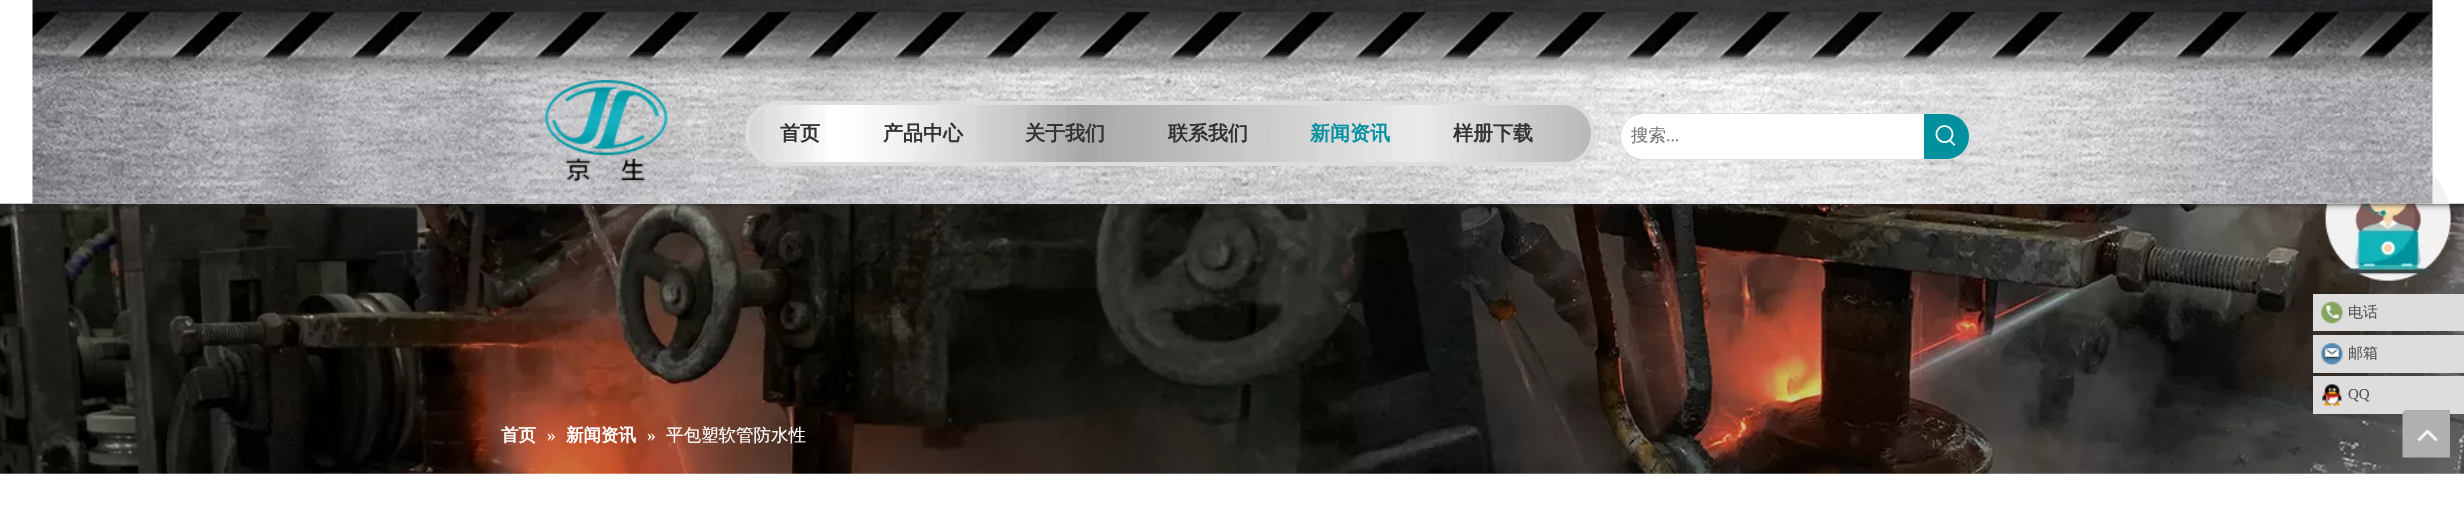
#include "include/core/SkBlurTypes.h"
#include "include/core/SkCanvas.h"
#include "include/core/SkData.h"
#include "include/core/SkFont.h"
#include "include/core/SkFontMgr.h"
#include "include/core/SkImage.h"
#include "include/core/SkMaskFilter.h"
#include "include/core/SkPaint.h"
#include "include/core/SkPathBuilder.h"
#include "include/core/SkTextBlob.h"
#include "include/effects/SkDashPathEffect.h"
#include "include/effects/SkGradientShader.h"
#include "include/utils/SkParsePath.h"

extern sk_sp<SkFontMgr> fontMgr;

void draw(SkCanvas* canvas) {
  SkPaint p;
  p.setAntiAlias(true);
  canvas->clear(SK_ColorWHITE);
  canvas->drawImageRect(SkImages::DeferredFromEncodedData(SkData::MakeFromFileName("images/9.png")), SkRect::MakeLTRB(0, 203, 2464, 474), SkSamplingOptions());
  canvas->drawImageRect(SkImages::DeferredFromEncodedData(SkData::MakeFromFileName("images/5.png")), SkRect::MakeLTRB(2325, 173, 2451, 281), SkSamplingOptions());
  canvas->save();
  canvas->clipPath(SkPathBuilder(SkPathFillType::kEvenOdd).moveTo(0, 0).lineTo(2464, 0).lineTo(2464, 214).lineTo(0, 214).close().moveTo(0, 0).lineTo(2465, 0).lineTo(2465, 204).lineTo(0, 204).close().detach(), true);
  p.setColor(SkColorSetRGB(34, 34, 34));
  p.setMaskFilter(SkMaskFilter::MakeBlur(kNormal_SkBlurStyle, 3));
  canvas->drawRect(SkRect::MakeLTRB(0, 0, 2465, 204), p);
  p.setMaskFilter(nullptr);
  canvas->restore();
  canvas->drawImageRect(SkImages::DeferredFromEncodedData(SkData::MakeFromFileName("images/1.png")), SkRect::MakeLTRB(32, 0, 2433, 204), SkSamplingOptions());
  canvas->drawImageRect(SkImages::DeferredFromEncodedData(SkData::MakeFromFileName("images/2.png")), SkRect::MakeLTRB(544, 79, 668, 182), SkSamplingOptions());
  canvas->drawImageRect(SkImages::DeferredFromEncodedData(SkData::MakeFromFileName("images/3.png")), SkRect::MakeLTRB(745, 105, 1595, 163), SkSamplingOptions());
  p.setStyle(SkPaint::kStroke_Style);
  p.setStrokeWidth(4);
  p.setColor(SkColorSetRGB(221, 221, 221));
  canvas->drawRoundRect(SkRect::MakeLTRB(747, 103, 1593, 164), 30.5f, 30.5f, p);
  p.setStyle(SkPaint::kFill_Style);
  p.setColor(SK_ColorWHITE);
  canvas->drawRoundRect(SkRect::MakeLTRB(1620.5f, 113.5f, 1969.5f, 159.5f), 23, 23, p);
  p.setStyle(SkPaint::kStroke_Style);
  p.setStrokeWidth(1);
  p.setColor(SkColorSetRGB(221, 221, 221));
  canvas->drawRoundRect(SkRect::MakeLTRB(1620.5f, 113.5f, 1969.5f, 159.5f), 23, 23, p);
  p.setStyle(SkPaint::kFill_Style);
  p.setColor(SkColorSetRGB(0, 144, 158));
  canvas->drawPath(SkPathBuilder().moveTo(1924, 114).lineTo(1946.5f, 114).cubicTo(1959, 114, 1969, 124, 1969, 136.5f).cubicTo(1969, 149, 1959, 159, 1946.5f, 159).lineTo(1924, 159).close().detach(), p);
  canvas->drawImageRect(SkImages::DeferredFromEncodedData(SkData::MakeFromFileName("images/4.png")), SkRect::MakeLTRB(1935, 125, 1956, 146), SkSamplingOptions());
  p.setColor(SkColorSetRGB(221, 221, 221));
  canvas->drawRect(SkRect::MakeLTRB(2313, 294, 2464, 331), p);
  canvas->drawImageRect(SkImages::DeferredFromEncodedData(SkData::MakeFromFileName("images/6.png")), SkRect::MakeLTRB(2321, 301, 2343, 324), SkSamplingOptions());
  canvas->drawRect(SkRect::MakeLTRB(2313, 335, 2464, 373), p);
  canvas->drawImageRect(SkImages::DeferredFromEncodedData(SkData::MakeFromFileName("images/7.png")), SkRect::MakeLTRB(2321, 343, 2343, 365), SkSamplingOptions());
  canvas->drawRect(SkRect::MakeLTRB(2313, 376, 2464, 414), p);
  canvas->drawImageRect(SkImages::DeferredFromEncodedData(SkData::MakeFromFileName("images/8.png")), SkRect::MakeLTRB(2322, 384, 2342, 406), SkSamplingOptions());
  canvas->drawImageRect(SkImages::DeferredFromEncodedData(SkData::MakeFromFileName("images/10.png")), SkRect::MakeLTRB(2402, 410, 2450, 458), SkSamplingOptions());
  SkFont font1(fontMgr->matchFamilyStyle("WenQuanYi Zen Hei", SkFontStyle::Bold()), 20);
  font1.setSubpixel(true);
  p.setColor(SkColorSetRGB(51, 51, 51));
  canvas->drawString("首页", 780, 140, font1, p);
  canvas->drawString("产品中心", 883, 140, font1, p);
  canvas->drawString("关于我们", 1025, 140, font1, p);
  canvas->drawString("联系我们", 1168, 140, font1, p);
  p.setColor(SkColorSetRGB(0, 144, 158));
  canvas->drawString("新闻资讯", 1310, 140, font1, p);
  p.setColor(SkColorSetRGB(51, 51, 51));
  canvas->drawString("样册下载", 1453, 140, font1, p);
  SkFont font2(fontMgr->matchFamilyStyle("WenQuanYi Zen Hei", SkFontStyle(500, SkFontStyle::kNormal_Width, SkFontStyle::kUpright_Slant)), 17.5f);
  font2.setSubpixel(true);
  p.setColor(SkColorSetRGB(117, 117, 117));
  canvas->drawString("搜索", 1631, 141, font2, p);
  SkFont font3(fontMgr->matchFamilyStyle("Liberation Serif", SkFontStyle::Normal()), 17.5f);
  font3.setSubpixel(true);
  canvas->drawString("...", 1666, 141, font3, p);
  SkFont font4(fontMgr->matchFamilyStyle("WenQuanYi Zen Hei", SkFontStyle(500, SkFontStyle::kNormal_Width, SkFontStyle::kUpright_Slant)), 15);
  font4.setSubpixel(true);
  p.setColor(SkColorSetRGB(84, 84, 84));
  canvas->drawString("电话", 2348, 317, font4, p);
  canvas->drawString("邮箱", 2348, 358, font4, p);
  SkFont font5(fontMgr->matchFamilyStyle("Liberation Serif", SkFontStyle::Normal()), 15);
  font5.setSubpixel(true);
  canvas->drawString("QQ", 2348, 399, font5, p);
  SkFont font6(fontMgr->matchFamilyStyle("WenQuanYi Zen Hei", SkFontStyle::Bold()), 17.5f);
  font6.setSubpixel(true);
  p.setColor(SK_ColorWHITE);
  canvas->drawString("首页", 501, 441, font6, p);
  canvas->drawString("»", 547, 441, font3, p);
  canvas->drawString("新闻资讯", 566, 441, font6, p);
  canvas->drawString("»", 647, 441, font3, p);
  canvas->drawString("平包塑软管防水性", 666, 441, font2, p);
}
